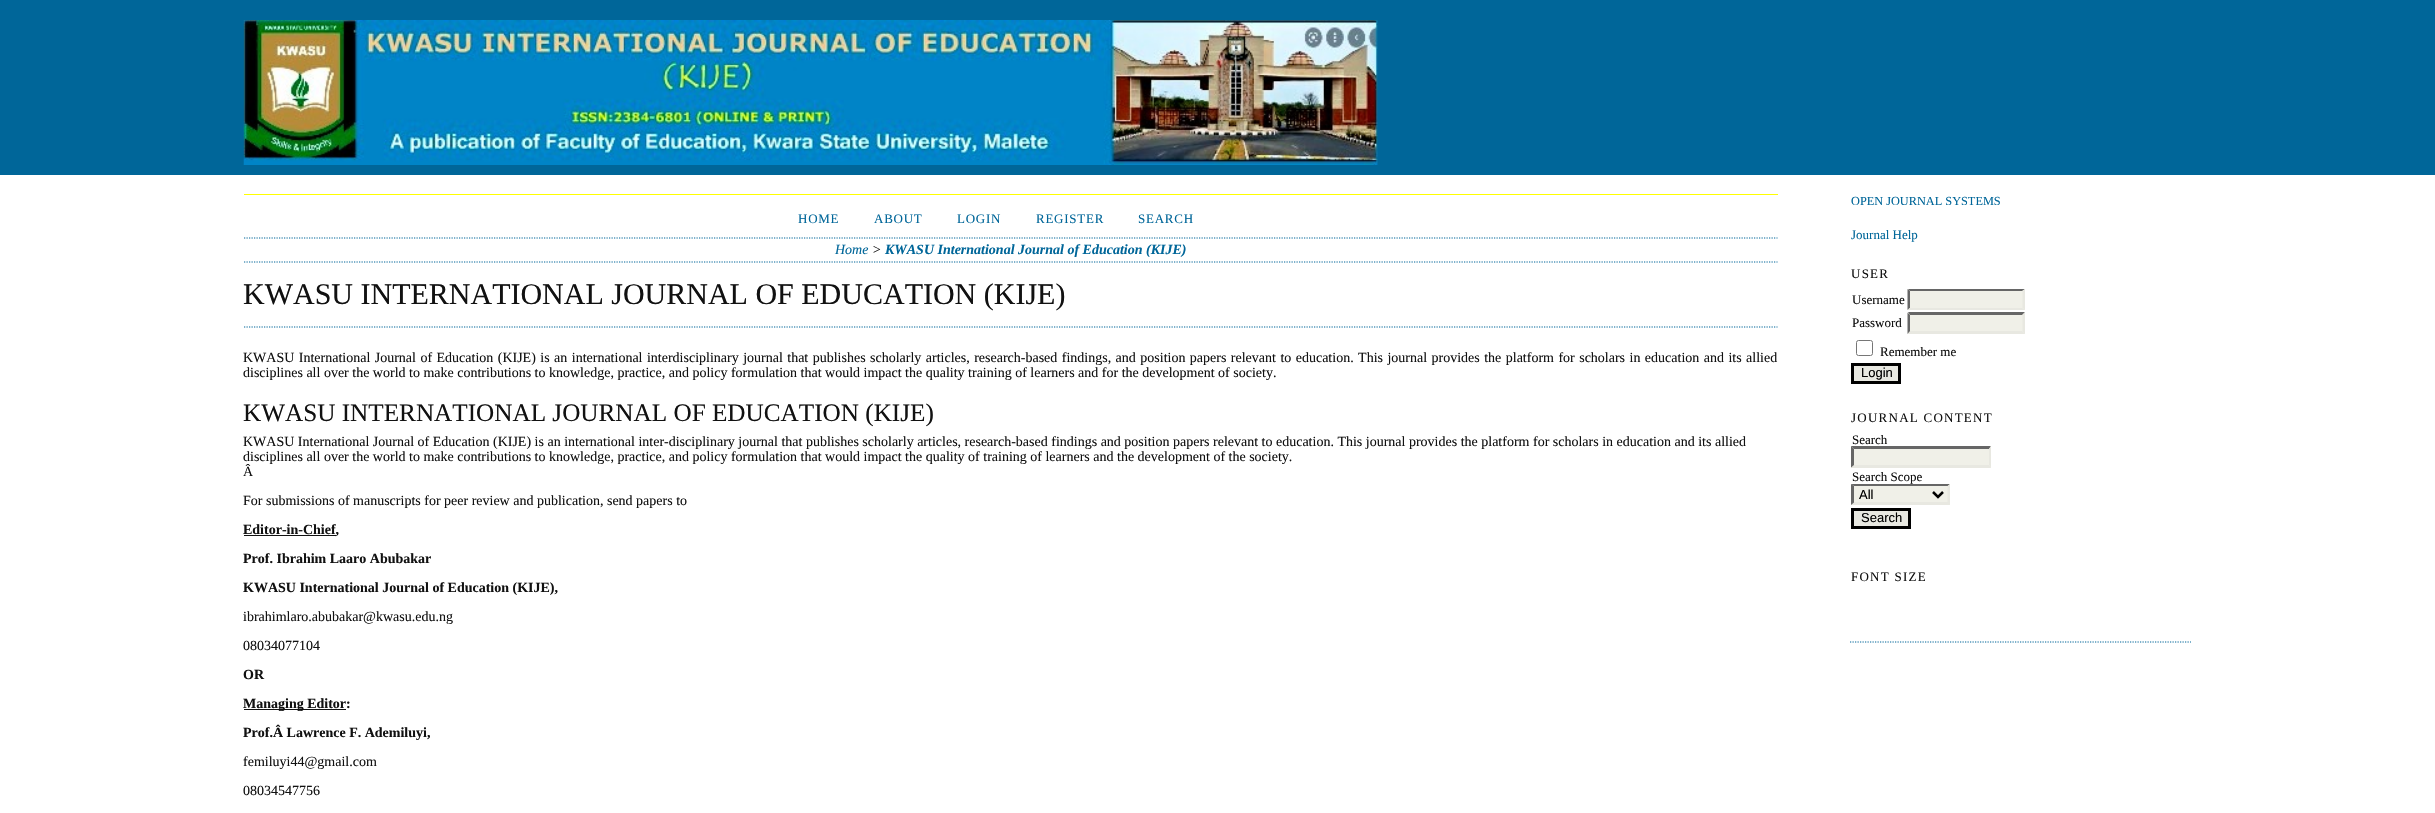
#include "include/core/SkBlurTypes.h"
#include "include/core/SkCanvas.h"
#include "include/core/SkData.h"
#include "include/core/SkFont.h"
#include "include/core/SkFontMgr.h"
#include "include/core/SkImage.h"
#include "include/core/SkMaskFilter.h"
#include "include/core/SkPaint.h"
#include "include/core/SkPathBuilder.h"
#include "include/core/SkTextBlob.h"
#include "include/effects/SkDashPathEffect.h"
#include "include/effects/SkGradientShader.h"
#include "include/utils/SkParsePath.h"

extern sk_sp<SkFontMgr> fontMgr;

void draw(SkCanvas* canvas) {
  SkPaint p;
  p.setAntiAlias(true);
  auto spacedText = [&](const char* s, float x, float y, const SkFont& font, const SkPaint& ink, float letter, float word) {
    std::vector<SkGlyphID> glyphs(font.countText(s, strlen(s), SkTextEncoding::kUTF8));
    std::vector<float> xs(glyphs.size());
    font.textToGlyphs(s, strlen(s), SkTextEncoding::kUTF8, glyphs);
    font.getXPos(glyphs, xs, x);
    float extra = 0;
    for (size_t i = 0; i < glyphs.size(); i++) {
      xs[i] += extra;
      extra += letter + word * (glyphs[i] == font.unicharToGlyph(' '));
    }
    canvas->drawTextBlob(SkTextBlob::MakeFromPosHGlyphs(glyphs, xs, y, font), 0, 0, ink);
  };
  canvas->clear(SK_ColorWHITE);
  p.setColor(SkColorSetRGB(0, 102, 153));
  canvas->drawRect(SkRect::MakeLTRB(0, 0, 2435, 175), p);
  canvas->drawImageRect(SkImages::DeferredFromEncodedData(SkData::MakeFromFileName("images/1.png")), SkRect::MakeLTRB(243, 20, 1378, 165), SkSamplingOptions());
  p.setColor(SkColorSetRGB(255, 255, 0));
  canvas->drawRect(SkRect::MakeLTRB(244, 194, 1778, 195), p);
  p.setStyle(SkPaint::kStroke_Style);
  p.setStrokeWidth(1.2f);
  p.setColor(SkColorSetRGB(0, 102, 153));
  p.setPathEffect(SkDashPathEffect::Make({{1.25f, 1.25f}}, 0));
  canvas->drawPath(SkPathBuilder().moveTo(244, 238).lineTo(1777.5f, 238).detach(), p);
  p.setPathEffect(nullptr);
  p.setPathEffect(SkDashPathEffect::Make({{1.25f, 1.25f}}, 0));
  canvas->drawPath(SkPathBuilder().moveTo(244, 262).lineTo(1777.5f, 262).detach(), p);
  p.setPathEffect(nullptr);
  p.setPathEffect(SkDashPathEffect::Make({{1.25f, 1.25f}}, 0));
  canvas->drawPath(SkPathBuilder().moveTo(244, 327).lineTo(1777.5f, 327).detach(), p);
  p.setPathEffect(nullptr);
  p.setStyle(SkPaint::kFill_Style);
  p.setColor(SkColorSetRGB(17, 17, 17));
  canvas->drawRect(SkRect::MakeLTRB(244, 535, 336, 536), p);
  canvas->drawRect(SkRect::MakeLTRB(244, 709, 346, 710), p);
  p.setStyle(SkPaint::kStroke_Style);
  p.setColor(SkColorSetRGB(0, 102, 153));
  p.setPathEffect(SkDashPathEffect::Make({{1.25f, 1.25f}}, 0));
  canvas->drawPath(SkPathBuilder().moveTo(1850, 642).lineTo(2191, 642).detach(), p);
  p.setPathEffect(nullptr);
  p.setStyle(SkPaint::kFill_Style);
  p.setColor(SkColorSetRGB(240, 240, 232));
  canvas->drawRect(SkRect::MakeLTRB(1908, 289, 2025, 310), p);
  p.setColor(SkColorSetRGB(102, 102, 102));
  canvas->drawPath(SkPathBuilder().moveTo(1908, 289).lineTo(2025, 289).lineTo(2022, 291).lineTo(1910, 291).close().detach(), p);
  p.setColor(SkColorSetRGB(232, 232, 225));
  canvas->drawPath(SkPathBuilder().moveTo(2025, 289).lineTo(2025, 310).lineTo(2022.5f, 307.5f).lineTo(2022.5f, 291).close().detach(), p);
  canvas->drawPath(SkPathBuilder().moveTo(2025, 310).lineTo(1908, 310).lineTo(1910, 308).lineTo(2022, 308).close().detach(), p);
  p.setColor(SkColorSetRGB(102, 102, 102));
  canvas->drawPath(SkPathBuilder().moveTo(1907.5f, 310).lineTo(1907.5f, 289).lineTo(1910, 291).lineTo(1910, 307.5f).close().detach(), p);
  p.setColor(SkColorSetRGB(240, 240, 232));
  canvas->drawRect(SkRect::MakeLTRB(1908, 313, 2025, 334), p);
  p.setColor(SkColorSetRGB(102, 102, 102));
  canvas->drawPath(SkPathBuilder().moveTo(1908, 312).lineTo(2025, 312).lineTo(2022, 315).lineTo(1910, 315).close().detach(), p);
  p.setColor(SkColorSetRGB(232, 232, 225));
  canvas->drawPath(SkPathBuilder().moveTo(2025, 312.5f).lineTo(2025, 334).lineTo(2022.5f, 331).lineTo(2022.5f, 315).close().detach(), p);
  canvas->drawPath(SkPathBuilder().moveTo(2025, 334).lineTo(1908, 334).lineTo(1910, 331).lineTo(2022, 331).close().detach(), p);
  p.setColor(SkColorSetRGB(102, 102, 102));
  canvas->drawPath(SkPathBuilder().moveTo(1907.5f, 334).lineTo(1907.5f, 312.5f).lineTo(1910, 315).lineTo(1910, 331).close().detach(), p);
  p.setStyle(SkPaint::kStroke_Style);
  p.setStrokeWidth(1);
  p.setColor(SkColorSetRGB(118, 118, 118));
  canvas->drawRoundRect(SkRect::MakeLTRB(1856.5f, 340.5f, 1872.5f, 355.5f), 2, 2, p);
  p.setStyle(SkPaint::kFill_Style);
  p.setColor(SkColorSetRGB(232, 232, 225));
  canvas->drawRect(SkRect::MakeLTRB(1852.5f, 364.5f, 1899.5f, 382.5f), p);
  p.setStyle(SkPaint::kStroke_Style);
  p.setStrokeWidth(3);
  p.setColor(SK_ColorBLACK);
  canvas->drawRect(SkRect::MakeLTRB(1852.5f, 364.5f, 1899.5f, 382.5f), p);
  p.setStyle(SkPaint::kFill_Style);
  p.setColor(SkColorSetRGB(240, 240, 232));
  canvas->drawRect(SkRect::MakeLTRB(1851, 446, 1991, 468), p);
  p.setColor(SkColorSetRGB(102, 102, 102));
  canvas->drawPath(SkPathBuilder().moveTo(1851, 446).lineTo(1991, 446).lineTo(1989, 449).lineTo(1854, 449).close().detach(), p);
  p.setColor(SkColorSetRGB(232, 232, 225));
  canvas->drawPath(SkPathBuilder().moveTo(1991, 446).lineTo(1991, 467.5f).lineTo(1989, 465).lineTo(1989, 449).close().detach(), p);
  canvas->drawPath(SkPathBuilder().moveTo(1991, 468).lineTo(1851, 468).lineTo(1854, 465).lineTo(1989, 465).close().detach(), p);
  p.setColor(SkColorSetRGB(102, 102, 102));
  canvas->drawPath(SkPathBuilder().moveTo(1851, 467.5f).lineTo(1851, 446).lineTo(1854, 449).lineTo(1854, 465).close().detach(), p);
  p.setColor(SkColorSetRGB(240, 240, 232));
  canvas->drawRect(SkRect::MakeLTRB(1851, 484, 1950, 505), p);
  p.setColor(SkColorSetRGB(102, 102, 102));
  canvas->drawPath(SkPathBuilder().moveTo(1851, 484).lineTo(1950, 484).lineTo(1948, 486).lineTo(1854, 486).close().detach(), p);
  p.setColor(SkColorSetRGB(232, 232, 225));
  canvas->drawPath(SkPathBuilder().moveTo(1950, 484).lineTo(1950, 505).lineTo(1947.5f, 502.5f).lineTo(1947.5f, 486).close().detach(), p);
  canvas->drawPath(SkPathBuilder().moveTo(1950, 505).lineTo(1851, 505).lineTo(1854, 502).lineTo(1948, 502).close().detach(), p);
  p.setColor(SkColorSetRGB(102, 102, 102));
  canvas->drawPath(SkPathBuilder().moveTo(1851, 505).lineTo(1851, 484).lineTo(1854, 486).lineTo(1854, 502.5f).close().detach(), p);
  p.setStyle(SkPaint::kStroke_Style);
  p.setStrokeWidth(2.5f);
  p.setColor(SK_ColorBLACK);
  canvas->drawPath(SkPathBuilder().moveTo(1933, 492).lineTo(1938, 497).lineTo(1943, 492).detach(), p);
  p.setStyle(SkPaint::kFill_Style);
  p.setColor(SkColorSetRGB(232, 232, 225));
  canvas->drawRect(SkRect::MakeLTRB(1852.5f, 509.5f, 1909.5f, 527.5f), p);
  p.setStyle(SkPaint::kStroke_Style);
  p.setStrokeWidth(3);
  p.setColor(SK_ColorBLACK);
  canvas->drawRect(SkRect::MakeLTRB(1852.5f, 509.5f, 1909.5f, 527.5f), p);
  SkFont font1(fontMgr->matchFamilyStyle("Liberation Serif", SkFontStyle::Normal()), 13);
  font1.setSubpixel(true);
  p.setStyle(SkPaint::kFill_Style);
  p.setColor(SkColorSetRGB(0, 102, 153));
  spacedText("HOME", 798, 223, font1, p, 0.75f, 0);
  spacedText("ABOUT", 874, 223, font1, p, 0.75f, 0);
  spacedText("LOGIN", 957, 223, font1, p, 0.75f, 0);
  spacedText("REGISTER", 1036, 223, font1, p, 0.75f, 0);
  spacedText("SEARCH", 1138, 223, font1, p, 0.75f, 0);
  SkFont font2(fontMgr->matchFamilyStyle("Liberation Serif", SkFontStyle::Italic()), 14);
  font2.setSubpixel(true);
  canvas->drawString("Home", 835, 254, font2, p);
  p.setColor(SkColorSetRGB(17, 17, 17));
  canvas->drawString(">", 872, 254, font2, p);
  SkFont font3(fontMgr->matchFamilyStyle("Liberation Serif", SkFontStyle::BoldItalic()), 14);
  font3.setSubpixel(true);
  p.setColor(SkColorSetRGB(0, 102, 153));
  canvas->drawString("KWASU International Journal of Education (KIJE)", 885, 254, font3, p);
  SkFont font4(fontMgr->matchFamilyStyle("Liberation Serif", SkFontStyle::Normal()), 30);
  font4.setSubpixel(true);
  p.setColor(SkColorSetRGB(17, 17, 17));
  canvas->drawString("KWASU INTERNATIONAL JOURNAL OF EDUCATION (KIJE)", 243, 304, font4, p);
  SkFont font5(fontMgr->matchFamilyStyle("Liberation Serif", SkFontStyle::Normal()), 14);
  font5.setSubpixel(true);
  spacedText("KWASU International Journal of Education (KIJE) is an international interdisciplinary journal that publishes scholarly articles, research-based findings, and position papers relevant to education. This journal provides the platform for scholars in education and its allied", 243, 362, font5, p, 0, 0.95f);
  canvas->drawString("disciplines all over the world to make contributions to knowledge, practice, and policy formulation that would impact the quality training of learners and for the development of society.", 243, 377, font5, p);
  SkFont font6(fontMgr->matchFamilyStyle("Liberation Serif", SkFontStyle::Normal()), 25.2f);
  font6.setSubpixel(true);
  canvas->drawString("KWASU INTERNATIONAL JOURNAL OF EDUCATION (KIJE)", 243, 421, font6, p);
  canvas->drawString("KWASU International Journal of Education (KIJE) is an international inter-disciplinary journal that publishes scholarly articles, research-based findings and position papers relevant to education. This journal provides the platform for scholars in education and its allied", 243, 446, font5, p);
  canvas->drawString("disciplines all over the world to make contributions to knowledge, practice, and policy formulation that would impact the quality of training of learners and the development of the society.", 243, 461, font5, p);
  canvas->drawString("Â", 243, 476, font5, p);
  canvas->drawString("For submissions of manuscripts for peer review and publication, send papers to", 243, 505, font5, p);
  SkFont font7(fontMgr->matchFamilyStyle("Liberation Serif", SkFontStyle::Bold()), 14);
  font7.setSubpixel(true);
  canvas->drawString("Editor-in-Chief,", 243, 534, font7, p);
  canvas->drawString("Prof. Ibrahim Laaro Abubakar", 243, 563, font7, p);
  canvas->drawString("KWASU International Journal of Education (KIJE),", 243, 592, font7, p);
  canvas->drawString("ibrahimlaro.abubakar@kwasu.edu.ng", 243, 621, font5, p);
  canvas->drawString("08034077104", 243, 650, font5, p);
  canvas->drawString("OR", 243, 679, font7, p);
  canvas->drawString("Managing Editor:", 243, 708, font7, p);
  canvas->drawString("Prof.Â Lawrence F. Ademiluyi,", 243, 737, font7, p);
  canvas->drawString("femiluyi44@gmail.com", 243, 766, font5, p);
  canvas->drawString("08034547756", 243, 795, font5, p);
  SkFont font8(fontMgr->matchFamilyStyle("Liberation Serif", SkFontStyle::Normal()), 12.3f);
  font8.setSubpixel(true);
  p.setColor(SkColorSetRGB(0, 102, 153));
  canvas->drawString("OPEN JOURNAL SYSTEMS", 1851, 205, font8, p);
  canvas->drawString("Journal Help", 1851, 239, font1, p);
  p.setColor(SkColorSetRGB(17, 17, 17));
  spacedText("USER", 1851, 278, font1, p, 1.25f, 0);
  canvas->drawString("Username", 1852, 304, font1, p);
  canvas->drawString("Password", 1852, 327, font1, p);
  canvas->drawString("Remember me", 1880, 356, font1, p);
  SkFont font9(fontMgr->matchFamilyStyle("Liberation Sans", SkFontStyle::Normal()), 13);
  font9.setSubpixel(true);
  p.setColor(SK_ColorBLACK);
  canvas->drawString("Login", 1861, 377, font9, p);
  p.setColor(SkColorSetRGB(17, 17, 17));
  spacedText("JOURNAL CONTENT", 1851, 422, font1, p, 1.25f, 0);
  canvas->drawString("Search", 1852, 444, font1, p);
  canvas->drawString("Search Scope", 1852, 481, font1, p);
  p.setColor(SK_ColorBLACK);
  canvas->drawString("All", 1859, 499, font9, p);
  canvas->drawString("Search", 1861, 522, font9, p);
  p.setColor(SkColorSetRGB(17, 17, 17));
  spacedText("FONT SIZE", 1851, 581, font1, p, 1.25f, 0);
}
